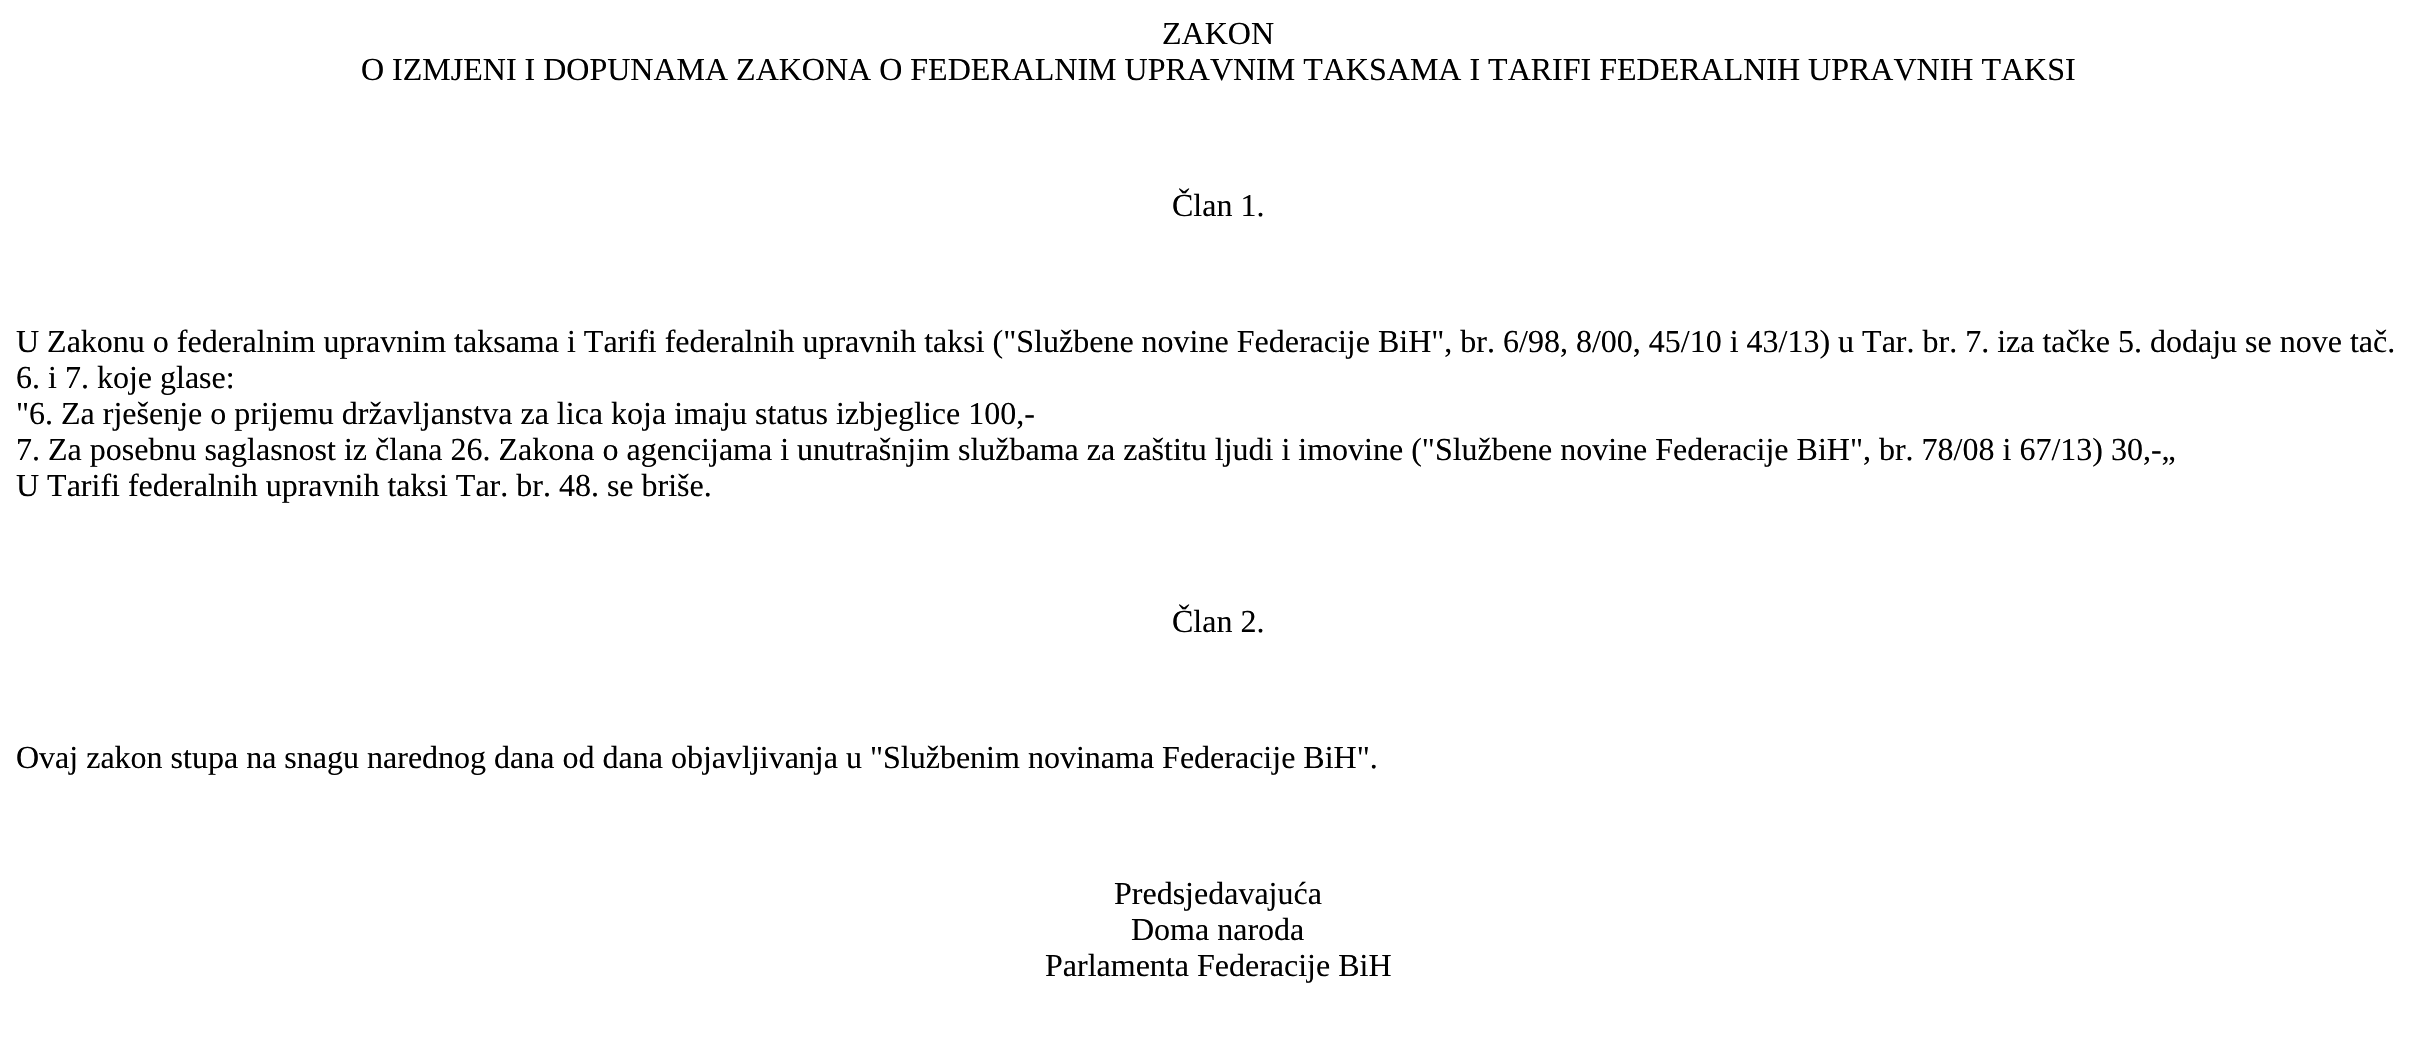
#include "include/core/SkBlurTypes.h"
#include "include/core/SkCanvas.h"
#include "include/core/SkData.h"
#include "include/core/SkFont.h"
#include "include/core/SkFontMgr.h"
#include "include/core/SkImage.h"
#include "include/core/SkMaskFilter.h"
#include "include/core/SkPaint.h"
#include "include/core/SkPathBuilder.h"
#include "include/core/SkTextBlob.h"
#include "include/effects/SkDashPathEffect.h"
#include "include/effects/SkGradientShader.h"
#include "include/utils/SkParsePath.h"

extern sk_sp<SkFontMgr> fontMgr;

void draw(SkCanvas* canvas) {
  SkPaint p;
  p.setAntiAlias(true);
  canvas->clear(SK_ColorWHITE);
  SkFont font1(fontMgr->matchFamilyStyle("Liberation Serif", SkFontStyle::Normal()), 32);
  font1.setSubpixel(true);
  p.setColor(SK_ColorBLACK);
  canvas->drawString("ZAKON", 1162, 44, font1, p);
  canvas->drawString("O IZMJENI I DOPUNAMA ZAKONA O FEDERALNIM UPRAVNIM TAKSAMA I TARIFI FEDERALNIH UPRAVNIH TAKSI", 361, 80, font1, p);
  canvas->drawString("Član 1.", 1172, 216, font1, p);
  canvas->drawString("U Zakonu o federalnim upravnim taksama i Tarifi federalnih upravnih taksi (\"Službene novine Federacije BiH\", br. 6/98, 8/00, 45/10 i 43/13) u Tar. br. 7. iza tačke 5. dodaju se nove tač.", 16, 352, font1, p);
  canvas->drawString("6. i 7. koje glase:", 16, 388, font1, p);
  canvas->drawString("\"6. Za rješenje o prijemu državljanstva za lica koja imaju status izbjeglice 100,-", 16, 424, font1, p);
  canvas->drawString("7. Za posebnu saglasnost iz člana 26. Zakona o agencijama i unutrašnjim službama za zaštitu ljudi i imovine (\"Službene novine Federacije BiH\", br. 78/08 i 67/13) 30,-„", 16, 460, font1, p);
  canvas->drawString("U Tarifi federalnih upravnih taksi Tar. br. 48. se briše.", 16, 496, font1, p);
  canvas->drawString("Član 2.", 1172, 632, font1, p);
  canvas->drawString("Ovaj zakon stupa na snagu narednog dana od dana objavljivanja u \"Službenim novinama Federacije BiH\".", 16, 768, font1, p);
  canvas->drawString("Predsjedavajuća", 1114, 904, font1, p);
  canvas->drawString("Doma naroda", 1131, 940, font1, p);
  canvas->drawString("Parlamenta Federacije BiH", 1045, 976, font1, p);
}
